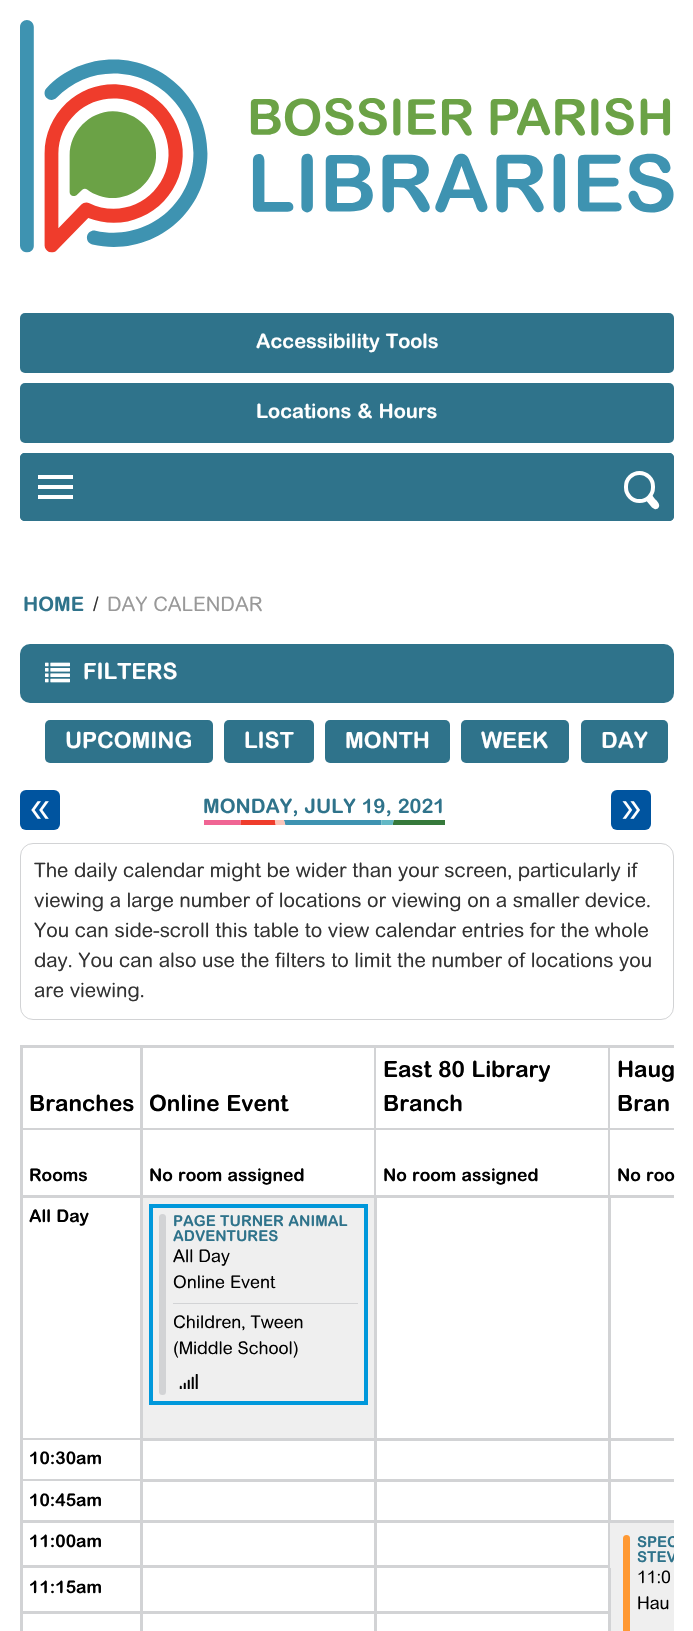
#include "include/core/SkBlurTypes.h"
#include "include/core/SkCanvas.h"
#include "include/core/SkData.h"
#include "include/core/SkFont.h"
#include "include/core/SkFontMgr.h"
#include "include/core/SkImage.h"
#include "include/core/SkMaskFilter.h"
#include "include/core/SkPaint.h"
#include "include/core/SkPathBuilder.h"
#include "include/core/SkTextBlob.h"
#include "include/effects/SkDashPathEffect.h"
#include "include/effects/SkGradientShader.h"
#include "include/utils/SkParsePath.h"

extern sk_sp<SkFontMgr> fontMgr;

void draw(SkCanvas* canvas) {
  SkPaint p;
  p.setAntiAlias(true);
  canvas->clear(SK_ColorWHITE);
  canvas->drawImageRect(SkImages::DeferredFromEncodedData(SkData::MakeFromFileName("images/1.png")), SkRect::MakeLTRB(20, 20, 674, 253), SkSamplingOptions());
  p.setColor(SkColorSetRGB(47, 115, 139));
  canvas->drawRoundRect(SkRect::MakeLTRB(20, 313, 674, 373), 5, 5, p);
  canvas->drawRoundRect(SkRect::MakeLTRB(20, 383, 674, 443), 5, 5, p);
  canvas->drawRoundRect(SkRect::MakeLTRB(20, 453, 674, 521), 5, 5, p);
  canvas->drawPath(SkPathBuilder().moveTo(25, 453).lineTo(89, 453).lineTo(89, 521).lineTo(25, 521).cubicTo(22, 521, 20, 519, 20, 516).lineTo(20, 458).cubicTo(20, 455, 22, 453, 25, 453).close().detach(), p);
  p.setColor(SK_ColorWHITE);
  canvas->drawRect(SkRect::MakeLTRB(38, 475, 73, 479), p);
  canvas->drawRect(SkRect::MakeLTRB(38, 485, 73, 489), p);
  canvas->drawRect(SkRect::MakeLTRB(38, 495, 73, 499), p);
  p.setColor(SkColorSetRGB(47, 115, 139));
  canvas->drawPath(SkPathBuilder().moveTo(605, 453).lineTo(669, 453).cubicTo(672, 453, 674, 455, 674, 458).lineTo(674, 516).cubicTo(674, 519, 672, 521, 669, 521).lineTo(605, 521).close().detach(), p);
  p.setColor(SK_ColorWHITE);
  canvas->drawPath(SkPathBuilder().moveTo(643.5f, 495).cubicTo(643.5f, 496, 643.5f, 497, 644, 498).lineTo(652, 507.5f).lineTo(654.5f, 509).cubicTo(657, 510, 660, 507.5f, 659, 504.5f).cubicTo(658.5f, 502.5f, 657, 501, 656, 500).cubicTo(653.5f, 497.5f, 650.5f, 492, 647, 492).cubicTo(646.5f, 493.5f, 645, 495, 643.5f, 495).close().detach(), p);
  p.setColor(SkColorSetRGB(47, 115, 139));
  canvas->drawRoundRect(SkRect::MakeLTRB(626, 473, 653, 501), 13.5f, 13.5f, p);
  p.setStyle(SkPaint::kStroke_Style);
  p.setStrokeWidth(4);
  p.setColor(SK_ColorWHITE);
  canvas->drawRoundRect(SkRect::MakeLTRB(626, 473, 653, 501), 13.5f, 13.5f, p);
  p.setStyle(SkPaint::kFill_Style);
  p.setColor(SkColorSetRGB(47, 115, 139));
  canvas->drawRoundRect(SkRect::MakeLTRB(20, 644, 674, 703), 10, 10, p);
  canvas->drawImageRect(SkImages::DeferredFromEncodedData(SkData::MakeFromFileName("images/2.png")), SkRect::MakeLTRB(45, 662, 70, 683), SkSamplingOptions());
  canvas->drawRoundRect(SkRect::MakeLTRB(45, 720, 213, 763), 5, 5, p);
  canvas->drawRoundRect(SkRect::MakeLTRB(224, 720, 314, 763), 5, 5, p);
  canvas->drawRoundRect(SkRect::MakeLTRB(325, 720, 450, 763), 5, 5, p);
  canvas->drawRoundRect(SkRect::MakeLTRB(461, 720, 569, 763), 5, 5, p);
  canvas->drawRoundRect(SkRect::MakeLTRB(581, 720, 668, 763), 5, 5, p);
  p.setColor(SkColorSetRGB(0, 84, 159));
  canvas->drawRoundRect(SkRect::MakeLTRB(20, 790, 60, 830), 6, 6, p);
  canvas->drawImageRect(SkImages::DeferredFromEncodedData(SkData::MakeFromFileName("images/3.png")), SkRect::MakeLTRB(31, 801, 49, 819), SkSamplingOptions());
  canvas->drawImageRect(SkImages::DeferredFromEncodedData(SkData::MakeFromFileName("images/4.png")), SkRect::MakeLTRB(204, 820, 445, 825), SkSamplingOptions());
  canvas->drawRoundRect(SkRect::MakeLTRB(611, 790, 651, 830), 6, 6, p);
  canvas->drawImageRect(SkImages::DeferredFromEncodedData(SkData::MakeFromFileName("images/5.png")), SkRect::MakeLTRB(622, 801, 640, 819), SkSamplingOptions());
  p.setStyle(SkPaint::kStroke_Style);
  p.setStrokeWidth(1);
  p.setColor(SkColorSetRGB(210, 211, 213));
  canvas->drawRoundRect(SkRect::MakeLTRB(20.5f, 843.5f, 673.5f, 1019.5f), 12.5f, 12.5f, p);
  p.setStyle(SkPaint::kFill_Style);
  canvas->drawRect(SkRect::MakeLTRB(20, 1045, 674, 1048), p);
  canvas->drawRect(SkRect::MakeLTRB(20, 1045, 23, 1631), p);
  canvas->drawRect(SkRect::MakeLTRB(140, 1048, 143, 1631), p);
  canvas->drawRect(SkRect::MakeLTRB(23, 1128, 143, 1130), p);
  canvas->drawRect(SkRect::MakeLTRB(374, 1048, 376, 1198), p);
  canvas->drawRect(SkRect::MakeLTRB(143, 1128, 376, 1130), p);
  canvas->drawRect(SkRect::MakeLTRB(608, 1048, 610, 1198), p);
  canvas->drawRect(SkRect::MakeLTRB(376, 1128, 674, 1130), p);
  canvas->drawRect(SkRect::MakeLTRB(23, 1195, 674, 1198), p);
  canvas->drawRect(SkRect::MakeLTRB(23, 1438, 143, 1440), p);
  p.setColor(SkColorSetRGB(239, 239, 239));
  canvas->drawRect(SkRect::MakeLTRB(143, 1198, 374, 1438), p);
  p.setColor(SkColorSetRGB(210, 211, 213));
  canvas->drawRect(SkRect::MakeLTRB(374, 1198, 377, 1440), p);
  canvas->drawRect(SkRect::MakeLTRB(143, 1438, 376, 1441), p);
  p.setStyle(SkPaint::kStroke_Style);
  p.setStrokeWidth(4);
  p.setColor(SkColorSetRGB(0, 152, 219));
  canvas->drawRect(SkRect::MakeLTRB(151, 1206, 366, 1403), p);
  p.setStyle(SkPaint::kFill_Style);
  p.setColor(SkColorSetRGB(210, 211, 213));
  canvas->drawRoundRect(SkRect::MakeLTRB(159, 1214, 166, 1395), 3.5f, 3.5f, p);
  canvas->drawRect(SkRect::MakeLTRB(173, 1303, 358, 1304), p);
  canvas->drawImageRect(SkImages::DeferredFromEncodedData(SkData::MakeFromFileName("images/6.png")), SkRect::MakeLTRB(179, 1374, 198, 1389), SkSamplingOptions());
  canvas->drawRect(SkRect::MakeLTRB(608, 1198, 611, 1440), p);
  canvas->drawRect(SkRect::MakeLTRB(376, 1438, 674, 1441), p);
  canvas->drawRect(SkRect::MakeLTRB(23, 1479, 143, 1481), p);
  canvas->drawRect(SkRect::MakeLTRB(374, 1440, 377, 1481), p);
  canvas->drawRect(SkRect::MakeLTRB(143, 1479, 376, 1482), p);
  canvas->drawRect(SkRect::MakeLTRB(608, 1440, 611, 1481), p);
  canvas->drawRect(SkRect::MakeLTRB(376, 1479, 674, 1482), p);
  canvas->drawRect(SkRect::MakeLTRB(374, 1481, 377, 1631), p);
  canvas->drawRect(SkRect::MakeLTRB(23, 1520, 376, 1523), p);
  canvas->drawRect(SkRect::MakeLTRB(608, 1481, 611, 1523), p);
  canvas->drawRect(SkRect::MakeLTRB(376, 1520, 674, 1523), p);
  canvas->drawRect(SkRect::MakeLTRB(608, 1523, 610, 1568), p);
  canvas->drawRect(SkRect::MakeLTRB(376, 1565, 610, 1568), p);
  p.setColor(SkColorSetRGB(239, 239, 239));
  canvas->drawRect(SkRect::MakeLTRB(610, 1523, 674, 1631), p);
  p.setColor(SkColorSetRGB(255, 153, 51));
  canvas->drawRoundRect(SkRect::MakeLTRB(623, 1535, 630, 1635), 3.5f, 3.5f, p);
  p.setColor(SkColorSetRGB(210, 211, 213));
  canvas->drawRect(SkRect::MakeLTRB(23, 1565, 376, 1568), p);
  canvas->drawRect(SkRect::MakeLTRB(608, 1568, 611, 1631), p);
  canvas->drawRect(SkRect::MakeLTRB(376, 1611, 610, 1614), p);
  canvas->drawRect(SkRect::MakeLTRB(23, 1611, 376, 1614), p);
  SkFont font1(fontMgr->matchFamilyStyle("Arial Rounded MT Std", SkFontStyle::Bold()), 20);
  font1.setSubpixel(true);
  p.setColor(SK_ColorWHITE);
  canvas->drawString("Accessibility Tools", 256, 348, font1, p);
  canvas->drawString("Locations & Hours", 256, 418, font1, p);
  p.setColor(SkColorSetRGB(47, 115, 139));
  canvas->drawString("HOME", 23, 611, font1, p);
  SkFont font2(fontMgr->matchFamilyStyle("Arial Rounded MT Std", SkFontStyle(500, SkFontStyle::kNormal_Width, SkFontStyle::kUpright_Slant)), 20);
  font2.setSubpixel(true);
  p.setColor(SkColorSetRGB(51, 51, 51));
  canvas->drawString("/", 93, 611, font2, p);
  p.setColor(SkColorSetRGB(153, 153, 153));
  canvas->drawString("DAY CALENDAR", 107, 611, font2, p);
  SkFont font3(fontMgr->matchFamilyStyle("Arial Rounded MT Std", SkFontStyle::Bold()), 22.5f);
  font3.setSubpixel(true);
  p.setColor(SK_ColorWHITE);
  canvas->drawString("FILTERS", 83, 679, font3, p);
  canvas->drawString("UPCOMING", 65, 748, font3, p);
  canvas->drawString("LIST", 244, 748, font3, p);
  canvas->drawString("MONTH", 345, 748, font3, p);
  canvas->drawString("WEEK", 481, 748, font3, p);
  canvas->drawString("DAY", 601, 748, font3, p);
  p.setColor(SkColorSetRGB(47, 115, 139));
  canvas->drawString("MONDAY, JULY 19, 2021", 203, 813, font1, p);
  p.setColor(SkColorSetRGB(51, 51, 51));
  canvas->drawString("The daily calendar might be wider than your screen, particularly if", 34, 877, font2, p);
  canvas->drawString("viewing a large number of locations or viewing on a smaller device.", 34, 907, font2, p);
  canvas->drawString("You can side-scroll this table to view calendar entries for the whole", 34, 937, font2, p);
  canvas->drawString("day. You can also use the filters to limit the number of locations you", 34, 967, font2, p);
  canvas->drawString("are viewing.", 34, 997, font2, p);
  p.setColor(SK_ColorBLACK);
  canvas->drawString("Branches", 29, 1111, font3, p);
  canvas->drawString("Online Event", 149, 1111, font3, p);
  canvas->drawString("East 80 Library", 383, 1077, font3, p);
  canvas->drawString("Branch", 383, 1111, font3, p);
  canvas->drawString("Haug", 617, 1077, font3, p);
  canvas->drawString("Bran", 617, 1111, font3, p);
  SkFont font4(fontMgr->matchFamilyStyle("Arial Rounded MT Std", SkFontStyle::Bold()), 17.5f);
  font4.setSubpixel(true);
  canvas->drawString("Rooms", 29, 1181, font4, p);
  canvas->drawString("No room assigned", 149, 1181, font4, p);
  canvas->drawString("No room assigned", 383, 1181, font4, p);
  canvas->drawString("No roo", 617, 1181, font4, p);
  canvas->drawString("All Day", 29, 1222, font4, p);
  SkFont font5(fontMgr->matchFamilyStyle("Arial Rounded MT Std", SkFontStyle::Bold()), 15);
  font5.setSubpixel(true);
  p.setColor(SkColorSetRGB(47, 115, 139));
  canvas->drawString("PAGE TURNER ANIMAL", 173, 1226, font5, p);
  canvas->drawString("ADVENTURES", 173, 1241, font5, p);
  SkFont font6(fontMgr->matchFamilyStyle("Arial Rounded MT Std", SkFontStyle(500, SkFontStyle::kNormal_Width, SkFontStyle::kUpright_Slant)), 17.5f);
  font6.setSubpixel(true);
  p.setColor(SK_ColorBLACK);
  canvas->drawString("All Day", 173, 1262, font6, p);
  canvas->drawString("Online Event", 173, 1288, font6, p);
  canvas->drawString("Children, Tween", 173, 1328, font6, p);
  canvas->drawString("(Middle School)", 173, 1354, font6, p);
  canvas->drawString("10:30am", 29, 1464, font4, p);
  canvas->drawString("10:45am", 29, 1506, font4, p);
  canvas->drawString("11:00am", 29, 1547, font4, p);
  canvas->save();
  canvas->clipRect(SkRect::MakeLTRB(23, 1048, 674, 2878));
  p.setColor(SkColorSetRGB(47, 115, 139));
  canvas->drawString("SPEC", 637, 1547, font5, p);
  canvas->drawString("STEV", 637, 1562, font5, p);
  canvas->restore();
  p.setColor(SK_ColorBLACK);
  canvas->drawString("11:0", 637, 1583, font6, p);
  canvas->drawString("Hau", 637, 1609, font6, p);
  canvas->drawString("11:15am", 29, 1593, font4, p);
}
